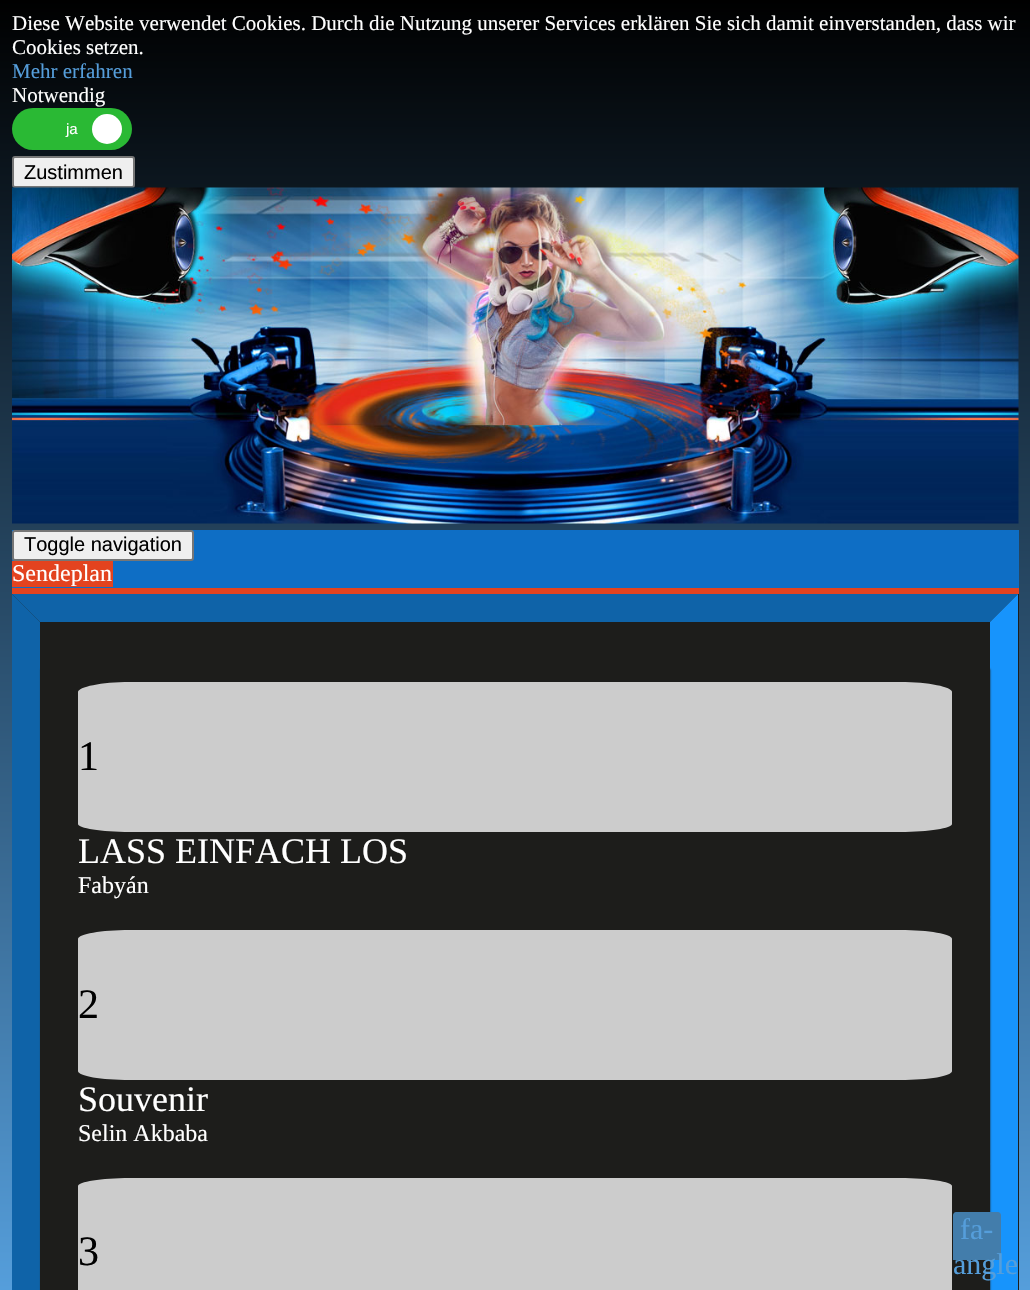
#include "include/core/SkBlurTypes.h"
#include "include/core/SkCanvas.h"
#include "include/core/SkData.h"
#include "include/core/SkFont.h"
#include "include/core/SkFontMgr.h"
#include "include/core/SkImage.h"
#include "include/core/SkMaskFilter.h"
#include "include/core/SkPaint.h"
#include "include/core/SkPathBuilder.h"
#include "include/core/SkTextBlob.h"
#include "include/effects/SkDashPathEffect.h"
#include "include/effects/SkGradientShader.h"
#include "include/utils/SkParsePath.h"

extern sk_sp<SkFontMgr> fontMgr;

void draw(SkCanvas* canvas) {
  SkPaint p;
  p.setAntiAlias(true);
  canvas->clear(SK_ColorWHITE);
  {
    const SkColor colors[] = {SK_ColorBLACK, SkColorSetRGB(85, 158, 219)};
    const float stops[] = {0, 1};
    const SkPoint ends[] = {{515, 0}, {515, 1290}};
    p.setShader(SkGradientShader::MakeLinear(ends, colors, stops, 2, SkTileMode::kClamp));
    p.setAlpha(255);
  }
  canvas->drawRect(SkRect::MakeLTRB(0, 0, 1030, 1290), p);
  p.setShader(nullptr);
  p.setColor(SkColorSetRGB(42, 185, 52));
  canvas->drawRoundRect(SkRect::MakeLTRB(12, 108, 132, 150), 21, 21, p);
  p.setColor(SK_ColorWHITE);
  canvas->drawCircle(107, 129, 15, p);
  p.setColor(SkColorSetRGB(239, 239, 239));
  canvas->drawRoundRect(SkRect::MakeLTRB(13, 157, 134, 187), 2, 2, p);
  p.setStyle(SkPaint::kStroke_Style);
  p.setStrokeWidth(2);
  p.setColor(SkColorSetRGB(118, 118, 118));
  canvas->drawRoundRect(SkRect::MakeLTRB(13, 157, 134, 187), 2, 2, p);
  canvas->drawImageRect(SkImages::DeferredFromEncodedData(SkData::MakeFromFileName("images/1.png")), SkRect::MakeLTRB(12, 187, 1019, 524), SkSamplingOptions());
  p.setStyle(SkPaint::kFill_Style);
  p.setColor(SkColorSetRGB(14, 110, 197));
  canvas->drawRect(SkRect::MakeLTRB(12, 530, 1019, 588), p);
  p.setColor(SkColorSetRGB(227, 67, 31));
  canvas->drawRect(SkRect::MakeLTRB(12, 588, 1019, 594), p);
  p.setColor(SkColorSetRGB(239, 239, 239));
  canvas->drawRoundRect(SkRect::MakeLTRB(13, 531, 193, 560), 2, 2, p);
  p.setStyle(SkPaint::kStroke_Style);
  p.setColor(SkColorSetRGB(118, 118, 118));
  canvas->drawRoundRect(SkRect::MakeLTRB(13, 531, 193, 560), 2, 2, p);
  p.setStyle(SkPaint::kFill_Style);
  p.setColor(SkColorSetRGB(227, 67, 31));
  canvas->drawRect(SkRect::MakeLTRB(12, 561, 113, 587), p);
  p.setColor(SkColorSetRGB(29, 29, 27));
  canvas->drawRect(SkRect::MakeLTRB(12, 594, 1019, 1290), p);
  p.setColor(SkColorSetRGB(15, 99, 168));
  canvas->drawPath(SkPathBuilder().moveTo(12, 594).lineTo(1018, 594).lineTo(990, 622).lineTo(40, 622).close().detach(), p);
  p.setColor(SkColorSetRGB(23, 148, 252));
  canvas->drawPath(SkPathBuilder().moveTo(1018, 594).lineTo(1018, 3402).lineTo(990, 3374).lineTo(990, 622).close().detach(), p);
  p.setColor(SkColorSetRGB(15, 99, 168));
  canvas->drawPath(SkPathBuilder().moveTo(12, 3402).lineTo(12, 594).lineTo(40, 622).lineTo(40, 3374).close().detach(), p);
  canvas->save();
  canvas->clipPath(SkPathBuilder(SkPathFillType::kEvenOdd).moveTo(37, 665).lineTo(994, 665).lineTo(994, 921).lineTo(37, 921).close().moveTo(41, 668).lineTo(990, 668).lineTo(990, 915).lineTo(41, 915).close().detach(), true);
  p.setColor(SkColorSetRGB(29, 29, 27));
  p.setMaskFilter(SkMaskFilter::MakeBlur(kNormal_SkBlurStyle, 1));
  canvas->drawRect(SkRect::MakeLTRB(41, 669, 990, 917), p);
  p.setMaskFilter(nullptr);
  canvas->restore();
  p.setColor(SkColorSetRGB(204, 204, 204));
  canvas->drawPath(SkPathBuilder().moveTo(130, 682).lineTo(900, 682).cubicTo(929, 682, 952, 687, 952, 692).lineTo(952, 824).cubicTo(952, 828, 929, 832, 900, 832).lineTo(130, 832).cubicTo(101, 832, 78, 828, 78, 824).lineTo(78, 692).cubicTo(78, 687, 101, 682, 130, 682).close().detach(), p);
  canvas->save();
  canvas->clipPath(SkPathBuilder(SkPathFillType::kEvenOdd).moveTo(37, 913).lineTo(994, 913).lineTo(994, 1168).lineTo(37, 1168).close().moveTo(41, 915).lineTo(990, 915).lineTo(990, 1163).lineTo(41, 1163).close().detach(), true);
  p.setColor(SkColorSetRGB(29, 29, 27));
  p.setMaskFilter(SkMaskFilter::MakeBlur(kNormal_SkBlurStyle, 1));
  canvas->drawRect(SkRect::MakeLTRB(41, 917, 990, 1164), p);
  p.setMaskFilter(nullptr);
  canvas->restore();
  p.setColor(SkColorSetRGB(204, 204, 204));
  canvas->drawPath(SkPathBuilder().moveTo(130, 930).lineTo(900, 930).cubicTo(929, 930, 952, 934, 952, 939).lineTo(952, 1071).cubicTo(952, 1076, 929, 1080, 900, 1080).lineTo(130, 1080).cubicTo(101, 1080, 78, 1076, 78, 1071).lineTo(78, 939).cubicTo(78, 934, 101, 930, 130, 930).close().detach(), p);
  canvas->save();
  canvas->clipPath(SkPathBuilder(SkPathFillType::kEvenOdd).moveTo(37, 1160).lineTo(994, 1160).lineTo(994, 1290).lineTo(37, 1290).close().moveTo(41, 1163).lineTo(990, 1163).lineTo(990, 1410).lineTo(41, 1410).close().detach(), true);
  p.setColor(SkColorSetRGB(29, 29, 27));
  p.setMaskFilter(SkMaskFilter::MakeBlur(kNormal_SkBlurStyle, 1));
  canvas->drawRect(SkRect::MakeLTRB(41, 1164, 990, 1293), p);
  p.setMaskFilter(nullptr);
  canvas->restore();
  p.setColor(SkColorSetRGB(204, 204, 204));
  canvas->drawPath(SkPathBuilder().moveTo(130, 1178).lineTo(900, 1178).cubicTo(929, 1178, 952, 1182, 952, 1186).lineTo(952, 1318).cubicTo(952, 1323, 929, 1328, 900, 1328).lineTo(130, 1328).cubicTo(101, 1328, 78, 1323, 78, 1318).lineTo(78, 1186).cubicTo(78, 1182, 101, 1178, 130, 1178).close().detach(), p);
  p.setColor(SkColorSetRGB(67, 125, 171));
  canvas->drawPath(SkPathBuilder().moveTo(956, 1212).lineTo(998, 1212).cubicTo(999.5f, 1212, 1001, 1213.5f, 1001, 1215).lineTo(1001, 1260).lineTo(953, 1260).lineTo(953, 1215).cubicTo(953, 1213.5f, 954.5f, 1212, 956, 1212).close().detach(), p);
  SkFont font1(fontMgr->matchFamilyStyle("Liberation Serif", SkFontStyle::Normal()), 21);
  font1.setSubpixel(true);
  p.setColor(SK_ColorWHITE);
  canvas->drawString("Diese Website verwendet Cookies. Durch die Nutzung unserer Services erklären Sie sich damit einverstanden, dass wir", 12, 30, font1, p);
  canvas->drawString("Cookies setzen.", 12, 54, font1, p);
  p.setColor(SkColorSetRGB(85, 158, 219));
  canvas->drawString("Mehr erfahren", 12, 78, font1, p);
  p.setColor(SK_ColorWHITE);
  canvas->drawString("Notwendig", 12, 102, font1, p);
  SkFont font2(fontMgr->matchFamilyStyle("Liberation Sans", SkFontStyle::Normal()), 15);
  font2.setSubpixel(true);
  canvas->drawString("ja", 66, 134, font2, p);
  SkFont font3(fontMgr->matchFamilyStyle("Liberation Sans", SkFontStyle::Normal()), 20);
  font3.setSubpixel(true);
  p.setColor(SK_ColorBLACK);
  canvas->drawString("Zustimmen", 24, 179, font3, p);
  canvas->drawString("Toggle navigation", 24, 551, font3, p);
  SkFont font4(fontMgr->matchFamilyStyle("Liberation Serif", SkFontStyle::Normal()), 24);
  font4.setSubpixel(true);
  p.setColor(SK_ColorWHITE);
  canvas->drawString("Sendeplan", 12, 581, font4, p);
  SkFont font5(fontMgr->matchFamilyStyle("Liberation Serif", SkFontStyle::Normal()), 42);
  font5.setSubpixel(true);
  p.setColor(SK_ColorBLACK);
  canvas->drawString("1", 78, 770, font5, p);
  SkFont font6(fontMgr->matchFamilyStyle("Liberation Serif", SkFontStyle::Normal()), 36);
  font6.setSubpixel(true);
  p.setColor(SK_ColorWHITE);
  canvas->drawString("LASS EINFACH LOS", 78, 863, font6, p);
  canvas->drawString("Fabyán", 78, 893, font4, p);
  p.setColor(SK_ColorBLACK);
  canvas->drawString("2", 78, 1018, font5, p);
  p.setColor(SK_ColorWHITE);
  canvas->drawString("Souvenir", 78, 1111, font6, p);
  canvas->drawString("Selin Akbaba", 78, 1141, font4, p);
  p.setColor(SK_ColorBLACK);
  canvas->drawString("3", 78, 1265, font5, p);
  SkFont font7(fontMgr->matchFamilyStyle("Liberation Serif", SkFontStyle::Normal()), 30);
  font7.setSubpixel(true);
  p.setColor(SkColorSetRGB(85, 158, 219));
  canvas->drawString("fa-", 960, 1239, font7, p);
  canvas->drawString("angle", 953, 1274, font7, p);
}
